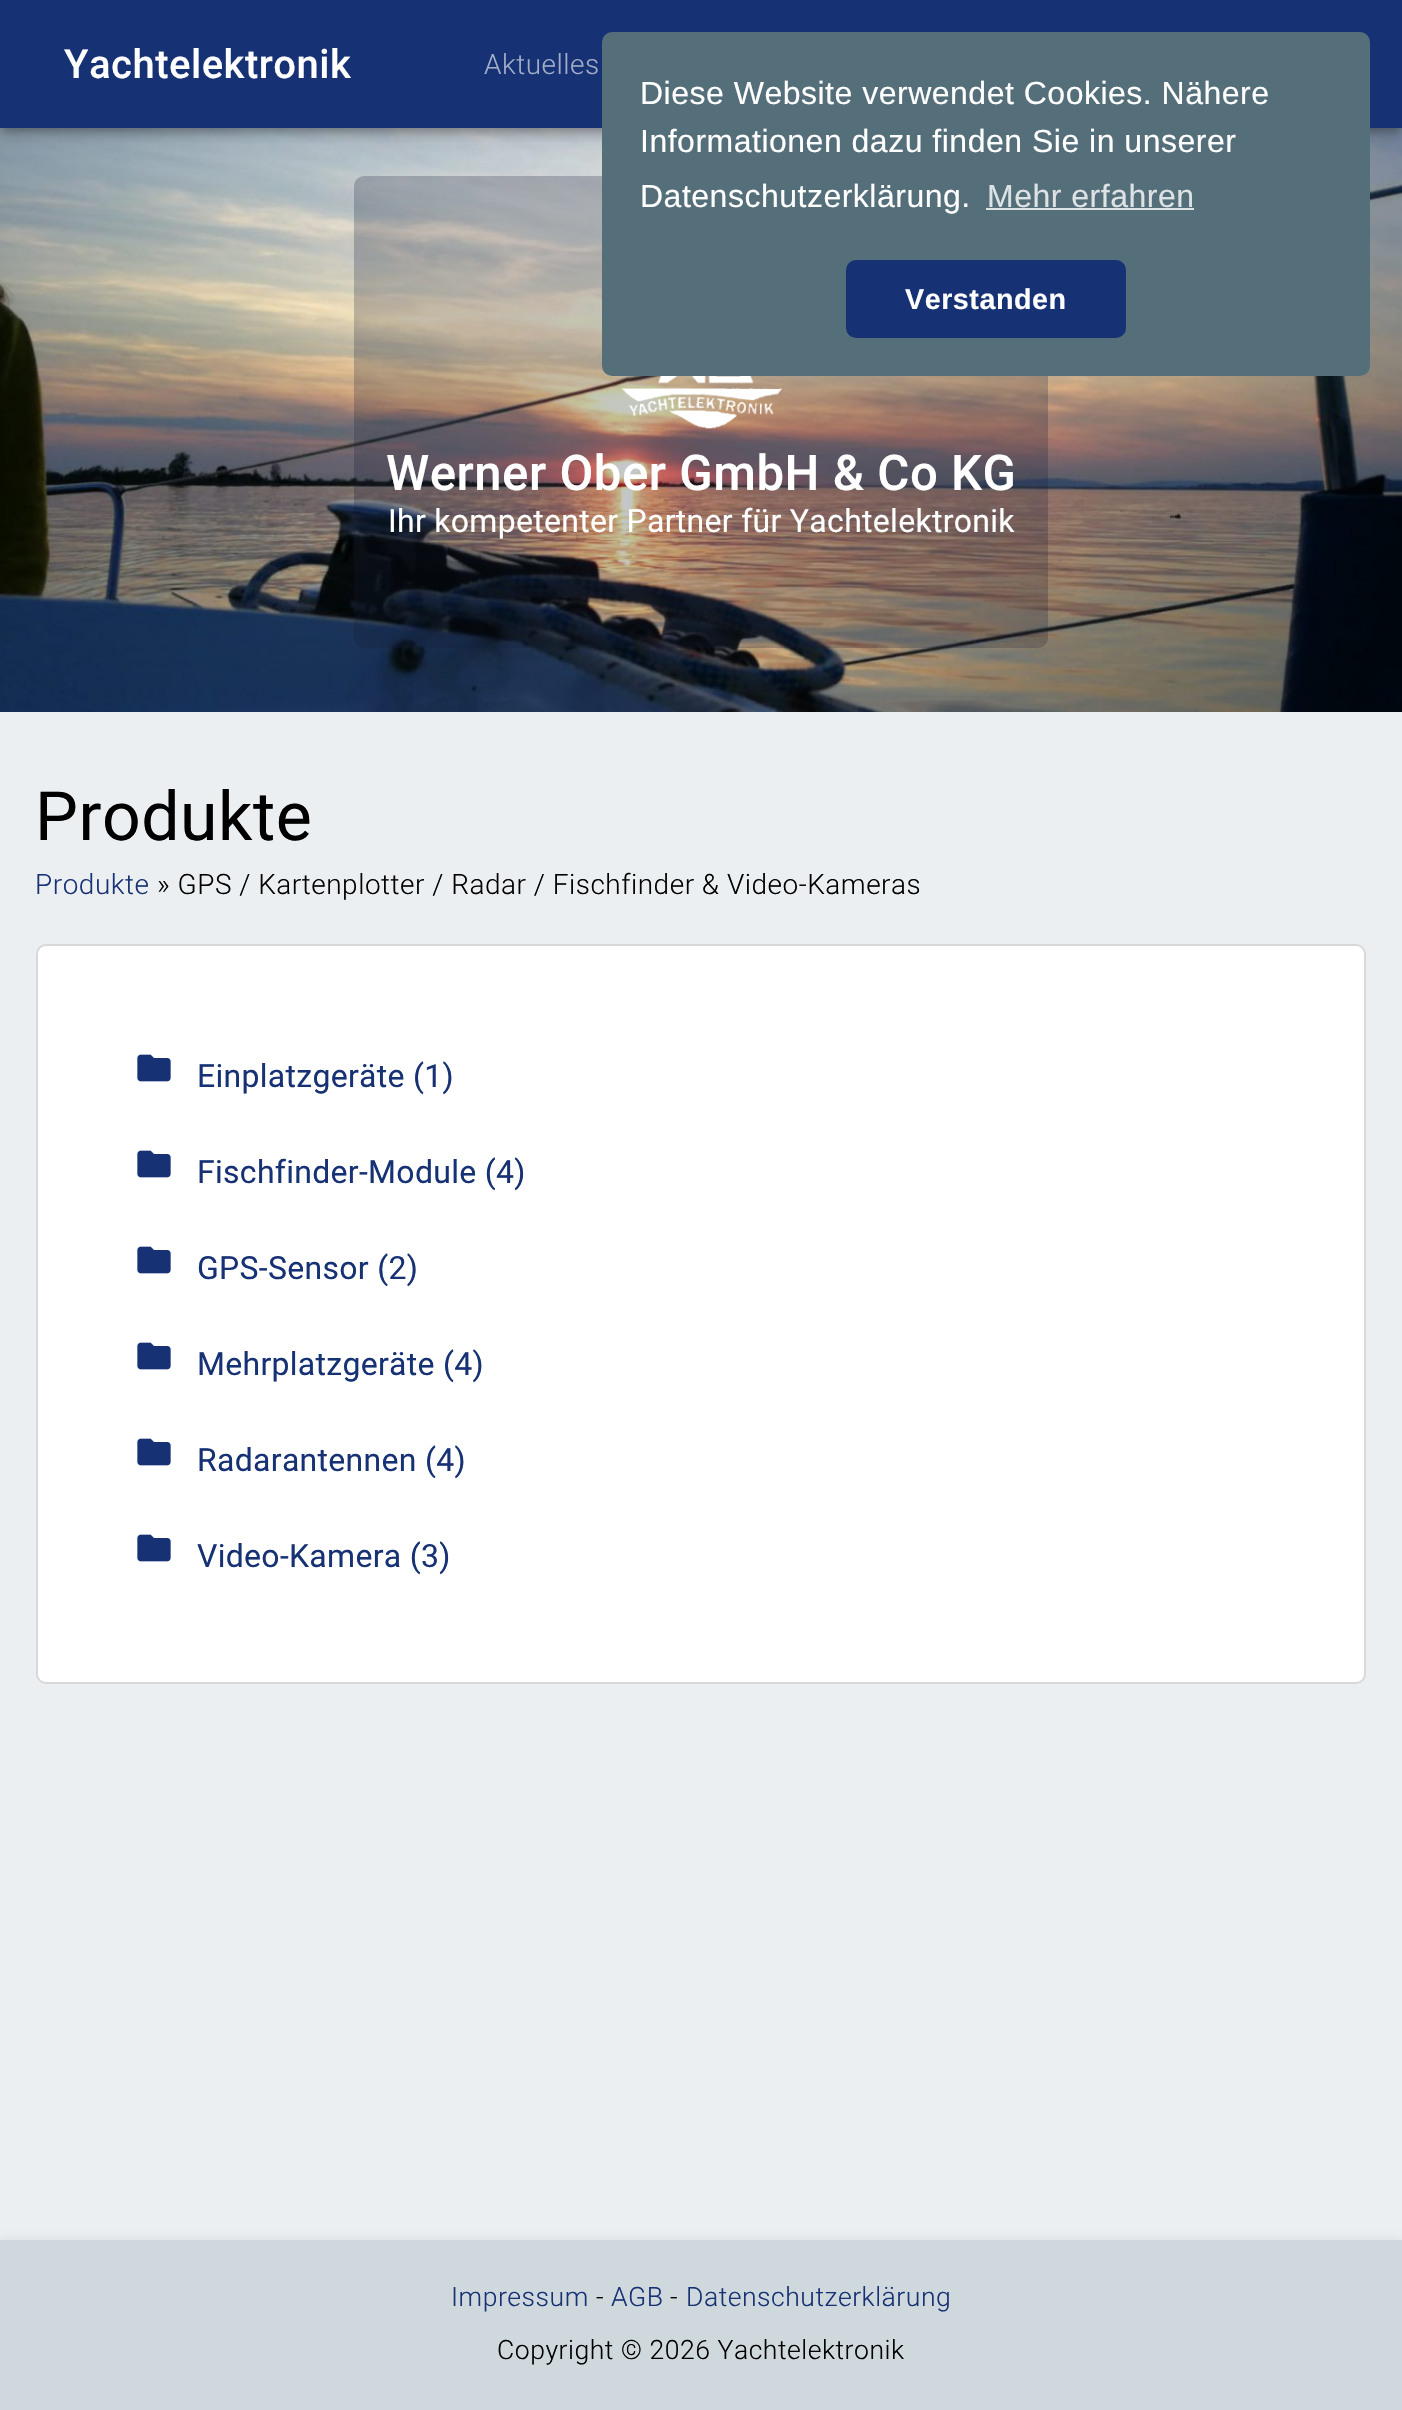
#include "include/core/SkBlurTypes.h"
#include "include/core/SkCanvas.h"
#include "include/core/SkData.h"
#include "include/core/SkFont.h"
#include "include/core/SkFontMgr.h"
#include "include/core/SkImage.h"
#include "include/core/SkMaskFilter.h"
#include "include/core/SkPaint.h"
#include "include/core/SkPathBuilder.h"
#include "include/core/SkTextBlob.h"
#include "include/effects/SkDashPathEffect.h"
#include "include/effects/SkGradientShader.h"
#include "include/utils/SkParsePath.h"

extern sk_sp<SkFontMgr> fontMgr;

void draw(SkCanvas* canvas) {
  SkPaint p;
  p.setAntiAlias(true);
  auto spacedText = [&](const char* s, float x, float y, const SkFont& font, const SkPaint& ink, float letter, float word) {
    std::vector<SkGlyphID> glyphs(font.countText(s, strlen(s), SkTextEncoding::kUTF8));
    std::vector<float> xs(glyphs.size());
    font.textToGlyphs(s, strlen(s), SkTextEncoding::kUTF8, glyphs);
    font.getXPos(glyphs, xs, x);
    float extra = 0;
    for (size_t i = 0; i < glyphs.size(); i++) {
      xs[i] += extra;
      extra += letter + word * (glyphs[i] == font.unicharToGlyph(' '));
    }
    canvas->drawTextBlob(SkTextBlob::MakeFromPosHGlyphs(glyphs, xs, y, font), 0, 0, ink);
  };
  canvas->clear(SkColorSetRGB(236, 239, 241));
  canvas->drawImageRect(SkImages::DeferredFromEncodedData(SkData::MakeFromFileName("images/1.png")), SkRect::MakeLTRB(0, 128, 1402, 712), SkSamplingOptions());
  p.setColor(SkColorSetARGB(31, 0, 0, 0));
  p.setMaskFilter(SkMaskFilter::MakeBlur(kNormal_SkBlurStyle, 10));
  canvas->drawRect(SkRect::MakeLTRB(0, 2, 1402, 130), p);
  p.setMaskFilter(nullptr);
  p.setColor(SkColorSetARGB(36, 0, 0, 0));
  p.setMaskFilter(SkMaskFilter::MakeBlur(kNormal_SkBlurStyle, 5));
  canvas->drawRect(SkRect::MakeLTRB(0, 8, 1402, 136), p);
  p.setMaskFilter(nullptr);
  p.setColor(SkColorSetARGB(51, 0, 0, 0));
  p.setMaskFilter(SkMaskFilter::MakeBlur(kNormal_SkBlurStyle, 4));
  canvas->drawRect(SkRect::MakeLTRB(2, 6, 1400, 130), p);
  p.setMaskFilter(nullptr);
  p.setColor(SkColorSetRGB(22, 49, 116));
  canvas->drawRect(SkRect::MakeLTRB(0, 0, 1402, 128), p);
  p.setColor(SkColorSetARGB(61, 16, 25, 51));
  canvas->drawRoundRect(SkRect::MakeLTRB(354, 176, 1048, 648), 10, 10, p);
  p.setColor(SkColorSetRGB(84, 110, 122));
  canvas->drawRoundRect(SkRect::MakeLTRB(602, 32, 1370, 376), 10, 10, p);
  p.setColor(SkColorSetRGB(221, 226, 228));
  canvas->drawRect(SkRect::MakeLTRB(986, 208, 1194, 210), p);
  p.setColor(SkColorSetRGB(22, 49, 116));
  canvas->drawRoundRect(SkRect::MakeLTRB(846, 260, 1126, 338), 10, 10, p);
  canvas->drawImageRect(SkImages::DeferredFromEncodedData(SkData::MakeFromFileName("images/2.png")), SkRect::MakeLTRB(621, 376, 782, 429), SkSamplingOptions());
  p.setColor(SK_ColorWHITE);
  canvas->drawRoundRect(SkRect::MakeLTRB(37, 945, 1365, 1683), 9, 9, p);
  p.setStyle(SkPaint::kStroke_Style);
  p.setStrokeWidth(2);
  p.setColor(SkColorSetRGB(216, 216, 216));
  canvas->drawRoundRect(SkRect::MakeLTRB(37, 945, 1365, 1683), 9, 9, p);
  canvas->drawImageRect(SkImages::DeferredFromEncodedData(SkData::MakeFromFileName("images/3.png")), SkRect::MakeLTRB(137, 1054, 171, 1082), SkSamplingOptions());
  canvas->drawImageRect(SkImages::DeferredFromEncodedData(SkData::MakeFromFileName("images/3.png")), SkRect::MakeLTRB(137, 1150, 171, 1178), SkSamplingOptions());
  canvas->drawImageRect(SkImages::DeferredFromEncodedData(SkData::MakeFromFileName("images/3.png")), SkRect::MakeLTRB(137, 1246, 171, 1274), SkSamplingOptions());
  canvas->drawImageRect(SkImages::DeferredFromEncodedData(SkData::MakeFromFileName("images/3.png")), SkRect::MakeLTRB(137, 1342, 171, 1370), SkSamplingOptions());
  canvas->drawImageRect(SkImages::DeferredFromEncodedData(SkData::MakeFromFileName("images/3.png")), SkRect::MakeLTRB(137, 1438, 171, 1466), SkSamplingOptions());
  canvas->drawImageRect(SkImages::DeferredFromEncodedData(SkData::MakeFromFileName("images/3.png")), SkRect::MakeLTRB(137, 1534, 171, 1562), SkSamplingOptions());
  p.setStyle(SkPaint::kFill_Style);
  p.setColor(SkColorSetARGB(31, 0, 0, 0));
  p.setMaskFilter(SkMaskFilter::MakeBlur(kNormal_SkBlurStyle, 5));
  canvas->drawRect(SkRect::MakeLTRB(0, 2242, 1402, 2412), p);
  p.setMaskFilter(nullptr);
  p.setColor(SkColorSetRGB(207, 216, 220));
  canvas->drawRect(SkRect::MakeLTRB(0, 2240, 1402, 2410), p);
  SkFont font1(fontMgr->matchFamilyStyle("Roboto", SkFontStyle(500, SkFontStyle::kNormal_Width, SkFontStyle::kUpright_Slant)), 40);
  font1.setSubpixel(true);
  p.setColor(SK_ColorWHITE);
  spacedText("Yachtelektronik", 64, 78, font1, p, 0.5f, 0);
  SkFont font2(fontMgr->matchFamilyStyle("Roboto", SkFontStyle(300, SkFontStyle::kNormal_Width, SkFontStyle::kUpright_Slant)), 28);
  font2.setSubpixel(true);
  p.setColor(SkColorSetRGB(162, 173, 199));
  spacedText("Aktuelles", 484, 74, font2, p, 0.5f, 0);
  SkFont font3(fontMgr->matchFamilyStyle("Liberation Sans", SkFontStyle::Normal()), 32);
  font3.setSubpixel(true);
  p.setColor(SK_ColorWHITE);
  spacedText("Diese Website verwendet Cookies. Nähere", 640, 104, font3, p, 0.5f, 0);
  spacedText("Informationen dazu finden Sie in unserer", 640, 152, font3, p, 0.5f, 0);
  spacedText("Datenschutzerklärung.", 640, 207, font3, p, 0.5f, 0);
  p.setColor(SkColorSetRGB(221, 226, 228));
  spacedText("Mehr erfahren", 987, 207, font3, p, 0.5f, 0);
  SkFont font4(fontMgr->matchFamilyStyle("Liberation Sans", SkFontStyle::Bold()), 28.75f);
  font4.setSubpixel(true);
  p.setColor(SK_ColorWHITE);
  spacedText("Verstanden", 905, 309, font4, p, 0.5f, 0);
  SkFont font5(fontMgr->matchFamilyStyle("Roboto", SkFontStyle(500, SkFontStyle::kNormal_Width, SkFontStyle::kUpright_Slant)), 49.1f);
  font5.setSubpixel(true);
  spacedText("Werner Ober GmbH & Co KG", 386, 490, font5, p, 0.5f, 0);
  SkFont font6(fontMgr->matchFamilyStyle("Roboto", SkFontStyle::Normal()), 32);
  font6.setSubpixel(true);
  spacedText("Ihr kompetenter Partner für Yachtelektronik", 388, 532, font6, p, 0.3f, 0);
  SkFont font7(fontMgr->matchFamilyStyle("Roboto", SkFontStyle::Normal()), 68);
  font7.setSubpixel(true);
  p.setColor(SK_ColorBLACK);
  spacedText("Produkte", 35, 840, font7, p, 0.5f, 0);
  p.setColor(SkColorSetRGB(22, 49, 116));
  spacedText("Produkte", 35, 894, font2, p, 0.5f, 0);
  p.setColor(SK_ColorBLACK);
  spacedText("» GPS / Kartenplotter / Radar / Fischfinder & Video-Kameras", 157, 894, font2, p, 0.5f, 0);
  p.setColor(SkColorSetRGB(22, 49, 116));
  spacedText("Einplatzgeräte (1)", 197, 1087, font6, p, 0.3f, 0);
  spacedText("Fischfinder-Module (4)", 197, 1183, font6, p, 0.3f, 0);
  spacedText("GPS-Sensor (2)", 197, 1279, font6, p, 0.3f, 0);
  spacedText("Mehrplatzgeräte (4)", 197, 1375, font6, p, 0.3f, 0);
  spacedText("Radarantennen (4)", 197, 1471, font6, p, 0.3f, 0);
  spacedText("Video-Kamera (3)", 197, 1567, font6, p, 0.3f, 0);
  SkFont font8(fontMgr->matchFamilyStyle("Roboto", SkFontStyle(300, SkFontStyle::kNormal_Width, SkFontStyle::kUpright_Slant)), 26.6f);
  font8.setSubpixel(true);
  spacedText("Impressum", 451, 2306, font8, p, 0.5f, 0);
  p.setColor(SK_ColorBLACK);
  spacedText("-", 596, 2306, font8, p, 0.5f, 0);
  p.setColor(SkColorSetRGB(22, 49, 116));
  spacedText("AGB", 611, 2306, font8, p, 0.5f, 0);
  p.setColor(SK_ColorBLACK);
  spacedText("-", 670, 2306, font8, p, 0.5f, 0);
  p.setColor(SkColorSetRGB(22, 49, 116));
  spacedText("Datenschutzerklärung", 686, 2306, font8, p, 0.5f, 0);
  p.setColor(SK_ColorBLACK);
  spacedText("Copyright © 2026 Yachtelektronik", 497, 2359, font8, p, 0.5f, 0);
}
